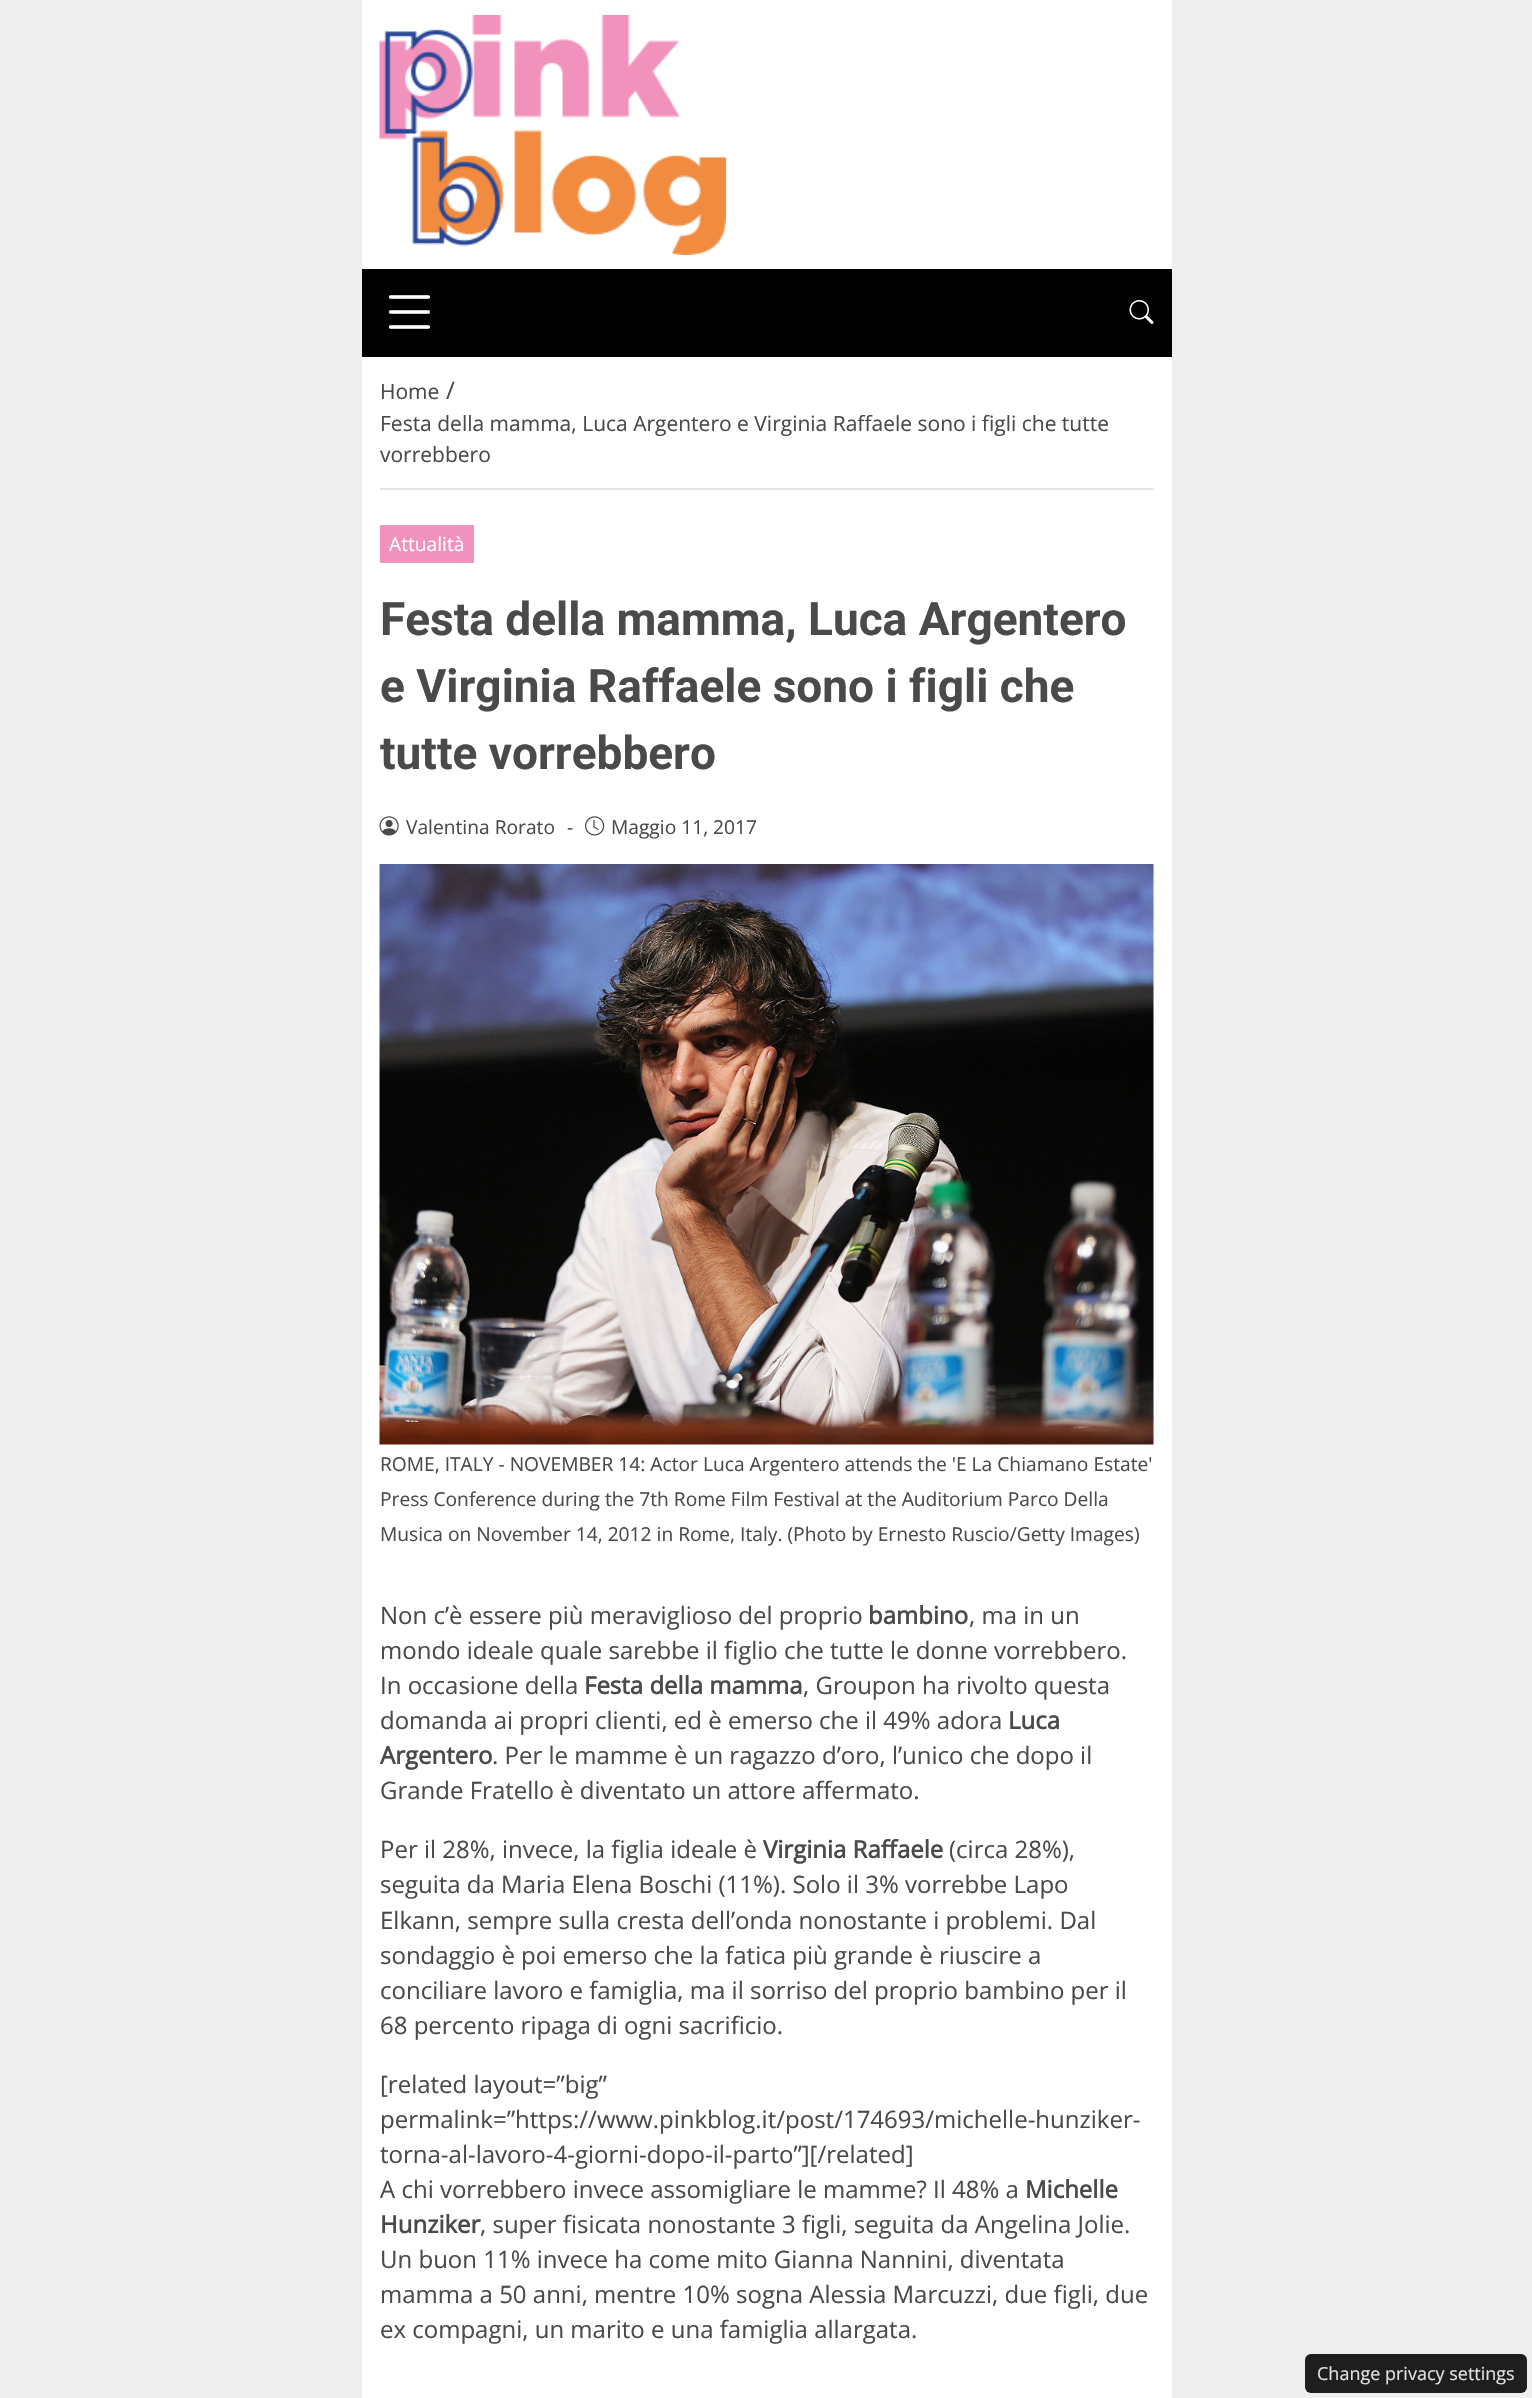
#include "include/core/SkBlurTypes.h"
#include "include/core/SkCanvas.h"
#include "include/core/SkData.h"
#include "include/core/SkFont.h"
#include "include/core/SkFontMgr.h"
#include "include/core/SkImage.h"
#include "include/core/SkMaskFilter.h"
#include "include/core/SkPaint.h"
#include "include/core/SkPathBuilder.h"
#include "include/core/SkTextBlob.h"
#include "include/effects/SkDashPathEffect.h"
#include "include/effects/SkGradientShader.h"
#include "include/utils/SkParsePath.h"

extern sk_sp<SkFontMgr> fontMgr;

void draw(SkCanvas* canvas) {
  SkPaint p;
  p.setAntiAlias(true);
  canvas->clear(SkColorSetRGB(238, 238, 238));
  p.setColor(SK_ColorWHITE);
  canvas->drawRect(SkRect::MakeLTRB(362, 0, 1172, 269), p);
  canvas->drawImageRect(SkImages::DeferredFromEncodedData(SkData::MakeFromFileName("images/1.png")), SkRect::MakeLTRB(379, 15, 726, 255), SkSamplingOptions());
  p.setColor(SK_ColorBLACK);
  canvas->drawRect(SkRect::MakeLTRB(362, 269, 1172, 357), p);
  canvas->drawImageRect(SkImages::DeferredFromEncodedData(SkData::MakeFromFileName("images/2.png")), SkRect::MakeLTRB(388, 295, 431, 329), SkSamplingOptions());
  canvas->drawImageRect(SkImages::DeferredFromEncodedData(SkData::MakeFromFileName("images/3.png")), SkRect::MakeLTRB(1129, 300, 1154, 324), SkSamplingOptions());
  p.setColor(SK_ColorWHITE);
  canvas->drawRect(SkRect::MakeLTRB(362, 357, 1172, 2398), p);
  p.setColor(SkColorSetRGB(230, 230, 230));
  canvas->drawRect(SkRect::MakeLTRB(380, 488, 1154, 490), p);
  p.setColor(SkColorSetRGB(240, 146, 188));
  canvas->drawRect(SkRect::MakeLTRB(380, 525, 474, 563), p);
  canvas->drawImageRect(SkImages::DeferredFromEncodedData(SkData::MakeFromFileName("images/4.png")), SkRect::MakeLTRB(379, 816, 399, 836), SkSamplingOptions());
  canvas->drawImageRect(SkImages::DeferredFromEncodedData(SkData::MakeFromFileName("images/5.png")), SkRect::MakeLTRB(585, 816, 605, 836), SkSamplingOptions());
  canvas->drawImageRect(SkImages::DeferredFromEncodedData(SkData::MakeFromFileName("images/6.png")), SkRect::MakeLTRB(379, 864, 1154, 1445), SkSamplingOptions());
  p.setColor(SkColorSetRGB(30, 30, 30));
  canvas->drawRoundRect(SkRect::MakeLTRB(1305, 2354, 1527, 2393), 6, 6, p);
  SkFont font1(fontMgr->matchFamilyStyle("Open Sans", SkFontStyle::Normal()), 21);
  font1.setSubpixel(true);
  p.setColor(SkColorSetRGB(74, 74, 74));
  canvas->drawString("Home", 380, 399, font1, p);
  SkFont font2(fontMgr->matchFamilyStyle("Open Sans", SkFontStyle::Normal()), 24);
  font2.setSubpixel(true);
  canvas->drawString("/", 446, 399, font2, p);
  canvas->drawString("Festa della mamma, Luca Argentero e Virginia Raffaele sono i figli che tutte", 380, 431, font1, p);
  canvas->drawString("vorrebbero", 380, 462, font1, p);
  SkFont font3(fontMgr->matchFamilyStyle("Open Sans", SkFontStyle::Normal()), 19.2f);
  font3.setSubpixel(true);
  p.setColor(SK_ColorWHITE);
  canvas->drawString("Attualità", 389, 551, font3, p);
  SkFont font4(fontMgr->matchFamilyStyle("Roboto", SkFontStyle::Bold()), 46);
  font4.setSubpixel(true);
  p.setColor(SkColorSetRGB(74, 74, 74));
  canvas->drawString("Festa della mamma, Luca Argentero", 380, 635, font4, p);
  canvas->drawString("e Virginia Raffaele sono i figli che", 380, 702, font4, p);
  canvas->drawString("tutte vorrebbero", 380, 769, font4, p);
  canvas->drawString("Valentina Rorato", 406, 834, font3, p);
  canvas->drawString("-", 567, 834, font3, p);
  canvas->drawString("Maggio 11, 2017", 611, 834, font3, p);
  canvas->drawString("ROME, ITALY - NOVEMBER 14: Actor Luca Argentero attends the 'E La Chiamano Estate'", 380, 1471, font3, p);
  canvas->drawString("Press Conference during the 7th Rome Film Festival at the Auditorium Parco Della", 380, 1506, font3, p);
  canvas->drawString("Musica on November 14, 2012 in Rome, Italy. (Photo by Ernesto Ruscio/Getty Images)", 380, 1541, font3, p);
  canvas->drawString("Non c’è essere più meraviglioso del proprio", 380, 1624, font2, p);
  SkFont font5(fontMgr->matchFamilyStyle("Open Sans", SkFontStyle::Bold()), 24);
  font5.setSubpixel(true);
  canvas->drawString("bambino", 868, 1624, font5, p);
  canvas->drawString(", ma in un", 969, 1624, font2, p);
  canvas->drawString("mondo ideale quale sarebbe il figlio che tutte le donne vorrebbero.", 380, 1659, font2, p);
  canvas->drawString("In occasione della", 380, 1694, font2, p);
  canvas->drawString("Festa della mamma", 584, 1694, font5, p);
  canvas->drawString(", Groupon ha rivolto questa", 803, 1694, font2, p);
  canvas->drawString("domanda ai propri clienti, ed è emerso che il 49% adora", 380, 1729, font2, p);
  canvas->drawString("Luca", 1008, 1729, font5, p);
  canvas->drawString("Argentero", 380, 1764, font5, p);
  canvas->drawString(". Per le mamme è un ragazzo d’oro, l’unico che dopo il", 492, 1764, font2, p);
  canvas->drawString("Grande Fratello è diventato un attore affermato.", 380, 1799, font2, p);
  canvas->drawString("Per il 28%, invece, la figlia ideale è", 380, 1858, font2, p);
  canvas->drawString("Virginia Raffaele", 763, 1858, font5, p);
  canvas->drawString("(circa 28%),", 949, 1858, font2, p);
  canvas->drawString("seguita da Maria Elena Boschi (11%). Solo il 3% vorrebbe Lapo", 380, 1893, font2, p);
  canvas->drawString("Elkann, sempre sulla cresta dell’onda nonostante i problemi. Dal", 380, 1929, font2, p);
  canvas->drawString("sondaggio è poi emerso che la fatica più grande è riuscire a", 380, 1964, font2, p);
  canvas->drawString("conciliare lavoro e famiglia, ma il sorriso del proprio bambino per il", 380, 1999, font2, p);
  canvas->drawString("68 percento ripaga di ogni sacrificio.", 380, 2034, font2, p);
  canvas->drawString("[related layout=”big”", 380, 2093, font2, p);
  canvas->drawString("permalink=”https://www.pinkblog.it/post/174693/michelle-hunziker-", 380, 2128, font2, p);
  canvas->drawString("torna-al-lavoro-4-giorni-dopo-il-parto”][/related]", 380, 2163, font2, p);
  canvas->drawString("A chi vorrebbero invece assomigliare le mamme? Il 48% a", 380, 2198, font2, p);
  canvas->drawString("Michelle", 1025, 2198, font5, p);
  canvas->drawString("Hunziker", 380, 2233, font5, p);
  canvas->drawString(", super fisicata nonostante 3 figli, seguita da Angelina Jolie.", 480, 2233, font2, p);
  canvas->drawString("Un buon 11% invece ha come mito Gianna Nannini, diventata", 380, 2268, font2, p);
  canvas->drawString("mamma a 50 anni, mentre 10% sogna Alessia Marcuzzi, due figli, due", 380, 2303, font2, p);
  canvas->drawString("ex compagni, un marito e una famiglia allargata.", 380, 2338, font2, p);
  SkFont font6(fontMgr->matchFamilyStyle("Open Sans", SkFontStyle::Normal()), 18);
  font6.setSubpixel(true);
  p.setColor(SkColorSetRGB(227, 225, 225));
  canvas->drawString("Change privacy settings", 1317, 2380, font6, p);
}
